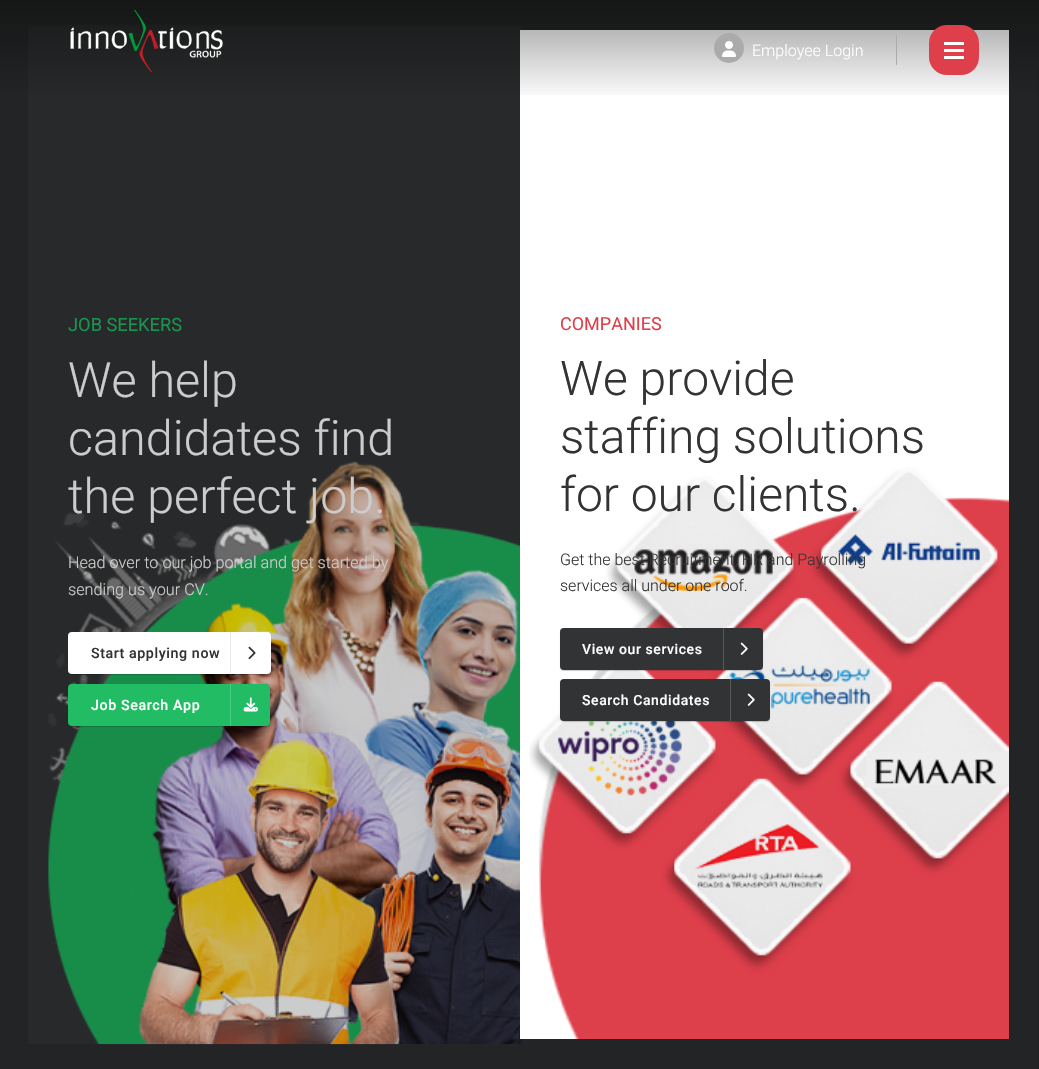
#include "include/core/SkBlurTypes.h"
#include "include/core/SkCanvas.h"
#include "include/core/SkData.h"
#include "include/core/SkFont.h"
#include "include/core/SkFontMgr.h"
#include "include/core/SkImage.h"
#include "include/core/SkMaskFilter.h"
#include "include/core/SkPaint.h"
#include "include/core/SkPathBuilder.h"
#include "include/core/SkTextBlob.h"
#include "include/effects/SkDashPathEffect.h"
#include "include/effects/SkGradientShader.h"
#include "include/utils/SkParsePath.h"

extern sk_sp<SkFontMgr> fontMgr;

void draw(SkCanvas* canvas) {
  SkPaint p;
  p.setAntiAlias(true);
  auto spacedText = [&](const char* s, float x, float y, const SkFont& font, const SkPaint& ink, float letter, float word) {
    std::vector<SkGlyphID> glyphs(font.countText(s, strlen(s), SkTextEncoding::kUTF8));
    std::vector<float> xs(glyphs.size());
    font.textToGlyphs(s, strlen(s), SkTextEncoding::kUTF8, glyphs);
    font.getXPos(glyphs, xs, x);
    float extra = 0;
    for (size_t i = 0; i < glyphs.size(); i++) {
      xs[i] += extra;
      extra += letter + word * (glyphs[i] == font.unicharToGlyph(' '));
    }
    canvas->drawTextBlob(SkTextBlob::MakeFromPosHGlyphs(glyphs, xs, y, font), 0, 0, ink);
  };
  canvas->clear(SK_ColorWHITE);
  p.setStyle(SkPaint::kStroke_Style);
  p.setStrokeWidth(30);
  p.setColor(SkColorSetRGB(35, 36, 37));
  canvas->drawRect(SkRect::MakeLTRB(15, 15, 1024, 1054), p);
  p.setStyle(SkPaint::kFill_Style);
  p.setColor(SkColorSetRGB(50, 51, 52));
  canvas->drawRect(SkRect::MakeLTRB(28, 25, 522, 1044), p);
  canvas->drawImageRect(SkImages::DeferredFromEncodedData(SkData::MakeFromFileName("images/3.png")), SkRect::MakeLTRB(48, 461, 523, 1045), SkSamplingOptions());
  canvas->drawImageRect(SkImages::DeferredFromEncodedData(SkData::MakeFromFileName("images/6.png")), SkRect::MakeLTRB(529, 467, 1009, 1039), SkSamplingOptions());
  p.setColor(SkColorSetARGB(51, 0, 0, 0));
  p.setMaskFilter(SkMaskFilter::MakeBlur(kNormal_SkBlurStyle, 0.5f));
  canvas->drawRoundRect(SkRect::MakeLTRB(560, 629, 763, 671), 4, 4, p);
  p.setMaskFilter(nullptr);
  p.setColor(SkColorSetRGB(50, 51, 52));
  canvas->drawRoundRect(SkRect::MakeLTRB(560, 628, 763, 670), 4, 4, p);
  p.setColor(SkColorSetRGB(87, 87, 88));
  canvas->drawRect(SkRect::MakeLTRB(723, 628, 724, 670), p);
  canvas->drawImageRect(SkImages::DeferredFromEncodedData(SkData::MakeFromFileName("images/7.png")), SkRect::MakeLTRB(740, 642, 748, 655), SkSamplingOptions());
  p.setColor(SkColorSetARGB(51, 0, 0, 0));
  p.setMaskFilter(SkMaskFilter::MakeBlur(kNormal_SkBlurStyle, 0.5f));
  canvas->drawRoundRect(SkRect::MakeLTRB(560, 680, 770, 722), 4, 4, p);
  p.setMaskFilter(nullptr);
  p.setColor(SkColorSetRGB(50, 51, 52));
  canvas->drawRoundRect(SkRect::MakeLTRB(560, 679, 770, 721), 4, 4, p);
  p.setColor(SkColorSetRGB(87, 87, 88));
  canvas->drawRect(SkRect::MakeLTRB(730, 679, 731, 721), p);
  canvas->drawImageRect(SkImages::DeferredFromEncodedData(SkData::MakeFromFileName("images/7.png")), SkRect::MakeLTRB(747, 693, 755, 706), SkSamplingOptions());
  SkFont font1(fontMgr->matchFamilyStyle("Roboto", SkFontStyle::Normal()), 18.25f);
  font1.setSubpixel(true);
  p.setColor(SkColorSetRGB(32, 186, 98));
  canvas->drawString("JOB SEEKERS", 68, 331, font1, p);
  SkFont font2(fontMgr->matchFamilyStyle("Roboto", SkFontStyle(300, SkFontStyle::kNormal_Width, SkFontStyle::kUpright_Slant)), 48.5f);
  font2.setSubpixel(true);
  p.setColor(SK_ColorWHITE);
  canvas->drawString("We help", 68, 397, font2, p);
  canvas->drawString("candidates find", 68, 455, font2, p);
  canvas->drawString("the perfect job.", 68, 513, font2, p);
  SkFont font3(fontMgr->matchFamilyStyle("Roboto", SkFontStyle(300, SkFontStyle::kNormal_Width, SkFontStyle::kUpright_Slant)), 16.2f);
  font3.setSubpixel(true);
  canvas->drawString("Head over to our job portal and get started by", 68, 568, font3, p);
  canvas->drawString("sending us your CV.", 68, 595, font3, p);
  p.setColor(SkColorSetARGB(51, 0, 0, 0));
  canvas->drawRect(SkRect::MakeLTRB(28, 25, 522, 1044), p);
  p.setMaskFilter(SkMaskFilter::MakeBlur(kNormal_SkBlurStyle, 0.5f));
  canvas->drawRoundRect(SkRect::MakeLTRB(68, 633, 271, 675), 4, 4, p);
  p.setMaskFilter(nullptr);
  p.setColor(SK_ColorWHITE);
  canvas->drawRoundRect(SkRect::MakeLTRB(68, 632, 271, 674), 4, 4, p);
  SkFont font4(fontMgr->matchFamilyStyle("Roboto", SkFontStyle(500, SkFontStyle::kNormal_Width, SkFontStyle::kUpright_Slant)), 14.25f);
  font4.setSubpixel(true);
  p.setColor(SkColorSetRGB(51, 51, 51));
  spacedText("Start applying now", 91, 658, font4, p, 0.6f, 0);
  p.setColor(SkColorSetRGB(233, 233, 233));
  canvas->drawRect(SkRect::MakeLTRB(230, 632, 231, 674), p);
  canvas->drawImageRect(SkImages::DeferredFromEncodedData(SkData::MakeFromFileName("images/4.png")), SkRect::MakeLTRB(248, 646, 256, 660), SkSamplingOptions());
  p.setColor(SkColorSetARGB(51, 0, 0, 0));
  p.setMaskFilter(SkMaskFilter::MakeBlur(kNormal_SkBlurStyle, 0.5f));
  canvas->drawRoundRect(SkRect::MakeLTRB(68, 685, 270, 727), 4, 4, p);
  p.setMaskFilter(nullptr);
  p.setColor(SkColorSetRGB(33, 188, 99));
  canvas->drawRoundRect(SkRect::MakeLTRB(68, 684, 270, 726), 4, 4, p);
  p.setColor(SK_ColorWHITE);
  spacedText("Job Search App", 91, 710, font4, p, 0.6f, 0);
  p.setColor(SkColorSetRGB(67, 209, 127));
  canvas->drawRect(SkRect::MakeLTRB(230, 684, 231, 726), p);
  canvas->drawImageRect(SkImages::DeferredFromEncodedData(SkData::MakeFromFileName("images/5.png")), SkRect::MakeLTRB(243, 697, 258, 712), SkSamplingOptions());
  p.setColor(SK_ColorWHITE);
  canvas->drawRect(SkRect::MakeLTRB(520, 30, 523, 1039), p);
  {
    const SkColor colors[] = {SkColorSetARGB(102, 0, 0, 0), SkColorSetARGB(0, 0, 0, 0)};
    const float stops[] = {0, 1};
    const SkPoint ends[] = {{520, 0}, {520, 100}};
    p.setShader(SkGradientShader::MakeLinear(ends, colors, stops, 2, SkTileMode::kClamp));
    p.setAlpha(255);
  }
  canvas->drawRect(SkRect::MakeLTRB(0, 0, 1039, 95), p);
  p.setShader(nullptr);
  p.setColor(SkColorSetRGB(223, 63, 75));
  canvas->drawRoundRect(SkRect::MakeLTRB(929, 25, 979, 75), 18, 18, p);
  p.setColor(SK_ColorWHITE);
  canvas->drawRect(SkRect::MakeLTRB(944, 56, 964, 59), p);
  canvas->drawRect(SkRect::MakeLTRB(944, 42, 964, 45), p);
  canvas->drawRect(SkRect::MakeLTRB(944, 49, 964, 52), p);
  p.setColor(SkColorSetARGB(20, 0, 0, 0));
  canvas->drawRect(SkRect::MakeLTRB(1038, 69, 1039, 1069), p);
  p.setColor(SkColorSetRGB(171, 171, 171));
  canvas->drawCircle(729, 48, 15, p);
  canvas->drawImageRect(SkImages::DeferredFromEncodedData(SkData::MakeFromFileName("images/2.png")), SkRect::MakeLTRB(722, 41, 736, 57), SkSamplingOptions());
  SkFont font5(fontMgr->matchFamilyStyle("Roboto", SkFontStyle(300, SkFontStyle::kNormal_Width, SkFontStyle::kUpright_Slant)), 16);
  font5.setSubpixel(true);
  p.setColor(SK_ColorWHITE);
  canvas->drawString("Employee Login", 752, 56, font5, p);
  canvas->drawImageRect(SkImages::DeferredFromEncodedData(SkData::MakeFromFileName("images/1.png")), SkRect::MakeLTRB(70, 10, 223, 72), SkSamplingOptions());
  p.setColor(SkColorSetRGB(171, 171, 171));
  canvas->drawRect(SkRect::MakeLTRB(896, 35, 897, 65), p);
  SkFont font6(fontMgr->matchFamilyStyle("Roboto", SkFontStyle::Normal()), 18);
  font6.setSubpixel(true);
  p.setColor(SkColorSetRGB(221, 63, 75));
  canvas->drawString("COMPANIES", 560, 330, font6, p);
  SkFont font7(fontMgr->matchFamilyStyle("Roboto", SkFontStyle(300, SkFontStyle::kNormal_Width, SkFontStyle::kUpright_Slant)), 48);
  font7.setSubpixel(true);
  p.setColor(SkColorSetRGB(51, 51, 51));
  canvas->drawString("We provide", 560, 395, font7, p);
  canvas->drawString("staffing solutions", 560, 453, font7, p);
  canvas->drawString("for our clients.", 560, 511, font7, p);
  canvas->drawString("Get the best Recruitment, HR and Payrolling", 560, 565, font5, p);
  canvas->drawString("services all under one roof.", 560, 591, font5, p);
  SkFont font8(fontMgr->matchFamilyStyle("Roboto", SkFontStyle(500, SkFontStyle::kNormal_Width, SkFontStyle::kUpright_Slant)), 14);
  font8.setSubpixel(true);
  p.setColor(SK_ColorWHITE);
  spacedText("View our services", 582, 654, font8, p, 0.6f, 0);
  spacedText("Search Candidates", 582, 705, font8, p, 0.6f, 0);
}
